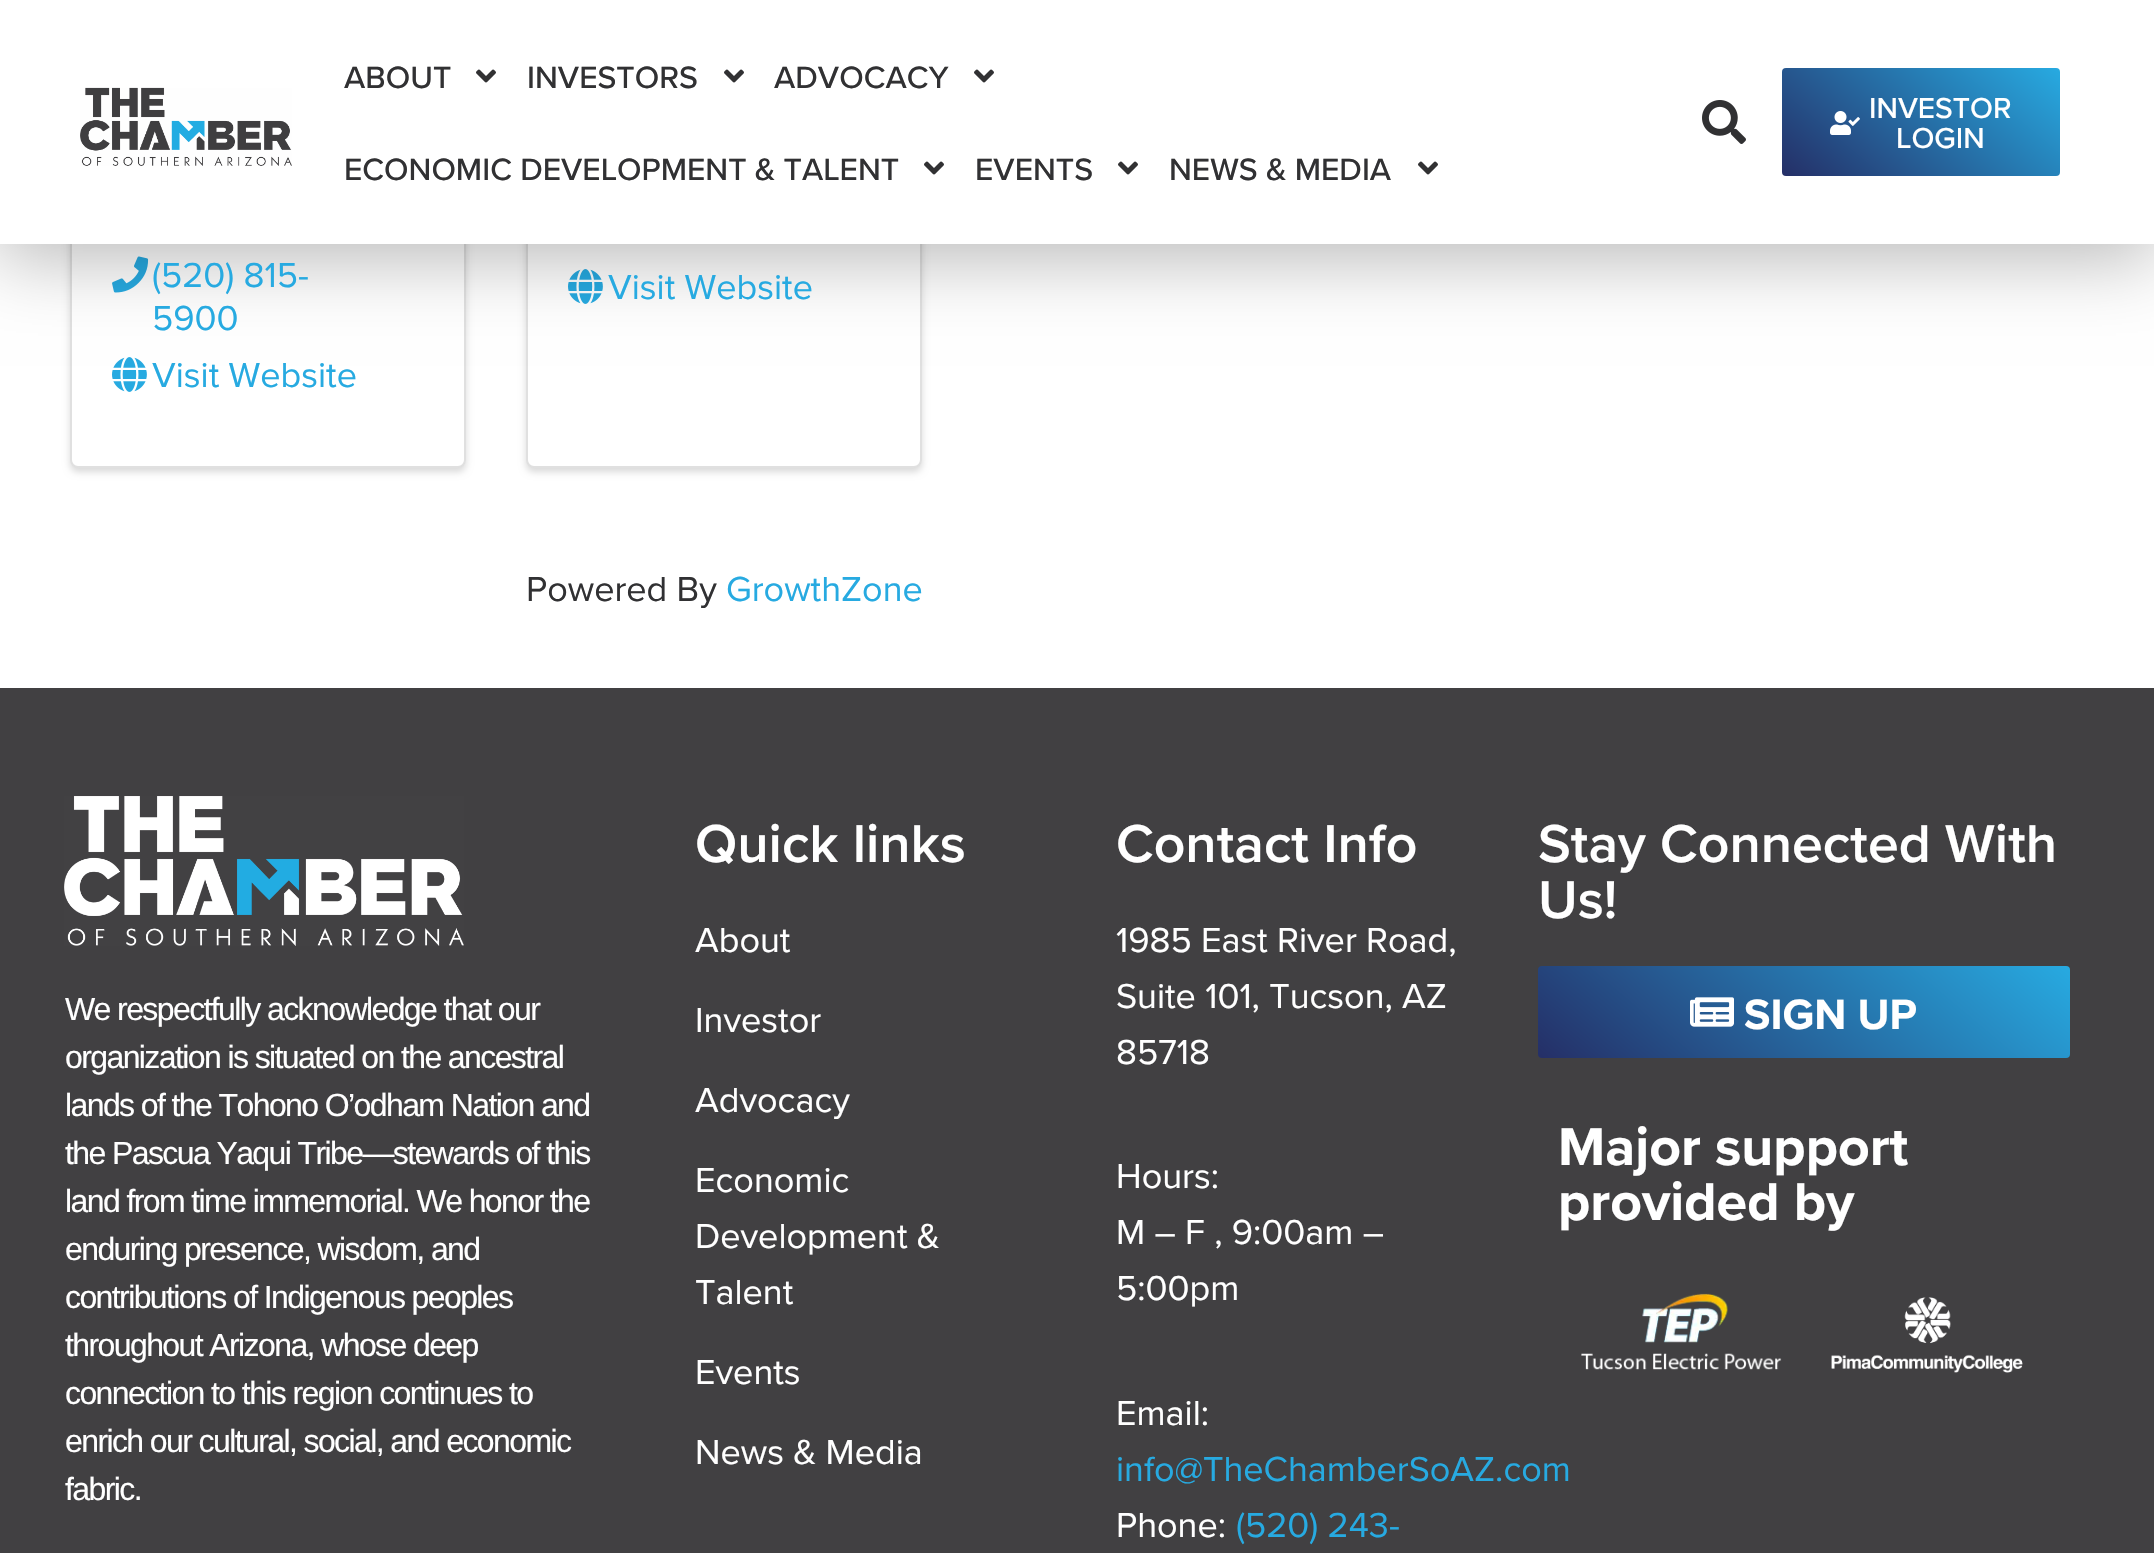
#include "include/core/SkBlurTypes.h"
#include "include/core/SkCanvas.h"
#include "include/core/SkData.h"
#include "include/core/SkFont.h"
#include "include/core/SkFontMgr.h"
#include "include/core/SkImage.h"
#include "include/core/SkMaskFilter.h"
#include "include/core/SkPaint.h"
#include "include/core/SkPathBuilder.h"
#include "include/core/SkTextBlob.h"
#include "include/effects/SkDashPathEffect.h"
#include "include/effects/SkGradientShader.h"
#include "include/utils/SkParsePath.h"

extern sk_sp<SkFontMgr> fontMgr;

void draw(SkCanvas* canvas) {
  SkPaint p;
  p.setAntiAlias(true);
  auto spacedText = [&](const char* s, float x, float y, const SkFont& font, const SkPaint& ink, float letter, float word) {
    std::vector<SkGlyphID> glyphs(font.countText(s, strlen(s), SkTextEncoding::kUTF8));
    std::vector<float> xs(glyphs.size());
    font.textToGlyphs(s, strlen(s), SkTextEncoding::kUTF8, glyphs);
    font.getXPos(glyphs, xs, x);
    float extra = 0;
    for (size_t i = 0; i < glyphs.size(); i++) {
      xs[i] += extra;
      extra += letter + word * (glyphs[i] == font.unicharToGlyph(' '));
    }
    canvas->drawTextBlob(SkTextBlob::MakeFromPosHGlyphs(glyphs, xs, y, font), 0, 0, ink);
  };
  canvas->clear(SK_ColorWHITE);
  p.setColor(SkColorSetARGB(38, 0, 0, 0));
  p.setMaskFilter(SkMaskFilter::MakeBlur(kNormal_SkBlurStyle, 3.5f));
  canvas->drawRoundRect(SkRect::MakeLTRB(70, -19, 466, 472), 8, 8, p);
  p.setMaskFilter(nullptr);
  p.setColor(SK_ColorWHITE);
  canvas->drawRoundRect(SkRect::MakeLTRB(70, -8, 466, 468), 8, 8, p);
  p.setStyle(SkPaint::kStroke_Style);
  p.setStrokeWidth(2);
  p.setColor(SkColorSetARGB(31, 0, 0, 0));
  canvas->drawRoundRect(SkRect::MakeLTRB(71, -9, 465, 467), 7, 7, p);
  canvas->drawImageRect(SkImages::DeferredFromEncodedData(SkData::MakeFromFileName("images/5.png")), SkRect::MakeLTRB(112, 256, 149, 293), SkSamplingOptions());
  canvas->drawImageRect(SkImages::DeferredFromEncodedData(SkData::MakeFromFileName("images/6.png")), SkRect::MakeLTRB(112, 357, 147, 392), SkSamplingOptions());
  p.setStyle(SkPaint::kFill_Style);
  p.setColor(SkColorSetARGB(38, 0, 0, 0));
  p.setMaskFilter(SkMaskFilter::MakeBlur(kNormal_SkBlurStyle, 3.5f));
  canvas->drawRoundRect(SkRect::MakeLTRB(526, -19, 922, 472), 8, 8, p);
  p.setMaskFilter(nullptr);
  p.setColor(SK_ColorWHITE);
  canvas->drawRoundRect(SkRect::MakeLTRB(526, -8, 922, 468), 8, 8, p);
  p.setStyle(SkPaint::kStroke_Style);
  p.setColor(SkColorSetARGB(31, 0, 0, 0));
  canvas->drawRoundRect(SkRect::MakeLTRB(527, -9, 921, 467), 7, 7, p);
  canvas->drawImageRect(SkImages::DeferredFromEncodedData(SkData::MakeFromFileName("images/6.png")), SkRect::MakeLTRB(568, 269, 603, 304), SkSamplingOptions());
  p.setStyle(SkPaint::kFill_Style);
  p.setColor(SkColorSetARGB(71, 0, 0, 0));
  p.setMaskFilter(SkMaskFilter::MakeBlur(kNormal_SkBlurStyle, 36));
  canvas->drawRect(SkRect::MakeLTRB(-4, 6, 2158, 258), p);
  p.setMaskFilter(nullptr);
  p.setColor(SK_ColorWHITE);
  canvas->drawRect(SkRect::MakeLTRB(0, 0, 2154, 244), p);
  canvas->drawImageRect(SkImages::DeferredFromEncodedData(SkData::MakeFromFileName("images/1.png")), SkRect::MakeLTRB(80, 87, 292, 166), SkSamplingOptions());
  canvas->drawImageRect(SkImages::DeferredFromEncodedData(SkData::MakeFromFileName("images/2.png")), SkRect::MakeLTRB(476, 69, 496, 83), SkSamplingOptions());
  canvas->drawImageRect(SkImages::DeferredFromEncodedData(SkData::MakeFromFileName("images/2.png")), SkRect::MakeLTRB(724, 69, 744, 83), SkSamplingOptions());
  canvas->drawImageRect(SkImages::DeferredFromEncodedData(SkData::MakeFromFileName("images/2.png")), SkRect::MakeLTRB(974, 69, 994, 83), SkSamplingOptions());
  canvas->drawImageRect(SkImages::DeferredFromEncodedData(SkData::MakeFromFileName("images/2.png")), SkRect::MakeLTRB(924, 161, 944, 175), SkSamplingOptions());
  canvas->drawImageRect(SkImages::DeferredFromEncodedData(SkData::MakeFromFileName("images/2.png")), SkRect::MakeLTRB(1118, 161, 1138, 175), SkSamplingOptions());
  canvas->drawImageRect(SkImages::DeferredFromEncodedData(SkData::MakeFromFileName("images/2.png")), SkRect::MakeLTRB(1418, 161, 1438, 175), SkSamplingOptions());
  canvas->drawImageRect(SkImages::DeferredFromEncodedData(SkData::MakeFromFileName("images/3.png")), SkRect::MakeLTRB(1702, 100, 1746, 144), SkSamplingOptions());
  {
    const SkColor colors[] = {SkColorSetRGB(37, 47, 103), SkColorSetRGB(39, 170, 225)};
    const float stops[] = {0, 1};
    const SkPoint ends[] = {{1837, 222}, {2005, 22}};
    p.setShader(SkGradientShader::MakeLinear(ends, colors, stops, 2, SkTileMode::kClamp));
    p.setAlpha(255);
  }
  canvas->drawRoundRect(SkRect::MakeLTRB(1782, 68, 2060, 176), 4, 4, p);
  canvas->drawImageRect(SkImages::DeferredFromEncodedData(SkData::MakeFromFileName("images/4.png")), SkRect::MakeLTRB(1830, 111, 1860, 135), SkSamplingOptions());
  p.setShader(nullptr);
  p.setColor(SkColorSetRGB(65, 64, 66));
  canvas->drawRect(SkRect::MakeLTRB(0, 688, 2154, 1553), p);
  canvas->drawImageRect(SkImages::DeferredFromEncodedData(SkData::MakeFromFileName("images/7.png")), SkRect::MakeLTRB(64, 796, 464, 946), SkSamplingOptions());
  {
    const SkColor colors[] = {SkColorSetRGB(37, 47, 103), SkColorSetRGB(39, 170, 225)};
    const float stops[] = {0, 1};
    const SkPoint ends[] = {{1671, 1170}, {1937, 854}};
    p.setShader(SkGradientShader::MakeLinear(ends, colors, stops, 2, SkTileMode::kClamp));
    p.setAlpha(255);
  }
  canvas->drawRoundRect(SkRect::MakeLTRB(1538, 966, 2070, 1058), 4, 4, p);
  canvas->drawImageRect(SkImages::DeferredFromEncodedData(SkData::MakeFromFileName("images/8.png")), SkRect::MakeLTRB(1690, 997, 1734, 1027), SkSamplingOptions());
  canvas->drawImageRect(SkImages::DeferredFromEncodedData(SkData::MakeFromFileName("images/9.png")), SkRect::MakeLTRB(1581, 1293, 1782, 1370), SkSamplingOptions());
  canvas->drawImageRect(SkImages::DeferredFromEncodedData(SkData::MakeFromFileName("images/10.png")), SkRect::MakeLTRB(1831, 1297, 2023, 1373), SkSamplingOptions());
  SkFont font1(fontMgr->matchFamilyStyle("Proxima Nova", SkFontStyle(500, SkFontStyle::kNormal_Width, SkFontStyle::kUpright_Slant)), 32);
  font1.setSubpixel(true);
  p.setShader(nullptr);
  p.setColor(SkColorSetRGB(49, 49, 51));
  canvas->drawString("ABOUT", 344, 88, font1, p);
  canvas->drawString("INVESTORS", 527, 88, font1, p);
  canvas->drawString("ADVOCACY", 774, 88, font1, p);
  canvas->drawString("ECONOMIC DEVELOPMENT & TALENT", 344, 180, font1, p);
  canvas->drawString("EVENTS", 975, 180, font1, p);
  canvas->drawString("NEWS & MEDIA", 1169, 180, font1, p);
  SkFont font2(fontMgr->matchFamilyStyle("Proxima Nova", SkFontStyle(500, SkFontStyle::kNormal_Width, SkFontStyle::kUpright_Slant)), 30);
  font2.setSubpixel(true);
  p.setColor(SK_ColorWHITE);
  canvas->drawString("INVESTOR", 1869, 118, font2, p);
  canvas->drawString("LOGIN", 1896, 148, font2, p);
  SkFont font3(fontMgr->matchFamilyStyle("Proxima Nova", SkFontStyle::Normal()), 36);
  font3.setSubpixel(true);
  p.setColor(SkColorSetRGB(39, 170, 225));
  canvas->drawString("(520) 815-", 152, 287, font3, p);
  canvas->drawString("5900", 152, 330, font3, p);
  canvas->drawString("Visit Website", 152, 387, font3, p);
  canvas->drawString("Visit Website", 608, 299, font3, p);
  p.setColor(SkColorSetRGB(49, 49, 51));
  canvas->drawString("Powered By", 526, 601, font3, p);
  p.setColor(SkColorSetRGB(39, 170, 225));
  canvas->drawString("GrowthZone", 726, 601, font3, p);
  SkFont font4(fontMgr->matchFamilyStyle("Liberation Sans", SkFontStyle::Normal()), 32);
  font4.setSubpixel(true);
  p.setColor(SK_ColorWHITE);
  spacedText("We respectfully acknowledge that our", 65, 1020, font4, p, -1.6f, 0);
  spacedText("organization is situated on the ancestral", 65, 1068, font4, p, -1.6f, 0);
  spacedText("lands of the Tohono O’odham Nation and", 65, 1116, font4, p, -1.6f, 0);
  spacedText("the Pascua Yaqui Tribe—stewards of this", 65, 1164, font4, p, -1.6f, 0);
  spacedText("land from time immemorial. We honor the", 65, 1212, font4, p, -1.6f, 0);
  spacedText("enduring presence, wisdom, and", 65, 1260, font4, p, -1.6f, 0);
  spacedText("contributions of Indigenous peoples", 65, 1308, font4, p, -1.6f, 0);
  spacedText("throughout Arizona, whose deep", 65, 1356, font4, p, -1.6f, 0);
  spacedText("connection to this region continues to", 65, 1404, font4, p, -1.6f, 0);
  spacedText("enrich our cultural, social, and economic", 65, 1452, font4, p, -1.6f, 0);
  spacedText("fabric.", 65, 1500, font4, p, -1.6f, 0);
  SkFont font5(fontMgr->matchFamilyStyle("Proxima Nova", SkFontStyle(600, SkFontStyle::kNormal_Width, SkFontStyle::kUpright_Slant)), 55.25f);
  font5.setSubpixel(true);
  canvas->drawString("Quick links", 695, 862, font5, p);
  canvas->drawString("About", 695, 952, font3, p);
  canvas->drawString("Investor", 695, 1032, font3, p);
  canvas->drawString("Advocacy", 695, 1112, font3, p);
  canvas->drawString("Economic", 695, 1192, font3, p);
  canvas->drawString("Development &", 695, 1248, font3, p);
  canvas->drawString("Talent", 695, 1304, font3, p);
  canvas->drawString("Events", 695, 1384, font3, p);
  canvas->drawString("News & Media", 695, 1464, font3, p);
  canvas->drawString("Contact Info", 1116, 862, font5, p);
  canvas->drawString("1985 East River Road,", 1116, 952, font3, p);
  canvas->drawString("Suite 101, Tucson, AZ", 1116, 1008, font3, p);
  canvas->drawString("85718", 1116, 1064, font3, p);
  canvas->drawString("Hours:", 1116, 1188, font3, p);
  canvas->drawString("M – F , 9:00am –", 1116, 1244, font3, p);
  canvas->drawString("5:00pm", 1116, 1300, font3, p);
  canvas->drawString("Email:", 1116, 1425, font3, p);
  p.setColor(SkColorSetRGB(39, 170, 225));
  canvas->drawString("info@TheChamberSoAZ.com", 1116, 1481, font3, p);
  p.setColor(SK_ColorWHITE);
  canvas->drawString("Phone:", 1116, 1537, font3, p);
  p.setColor(SkColorSetRGB(39, 170, 225));
  canvas->drawString("(520) 243-", 1236, 1537, font3, p);
  p.setColor(SK_ColorWHITE);
  canvas->drawString("Stay Connected With", 1538, 862, font5, p);
  canvas->drawString("Us!", 1538, 918, font5, p);
  SkFont font6(fontMgr->matchFamilyStyle("Proxima Nova", SkFontStyle::Bold()), 44);
  font6.setSubpixel(true);
  canvas->drawString("SIGN UP", 1744, 1029, font6, p);
  SkFont font7(fontMgr->matchFamilyStyle("Proxima Nova", SkFontStyle::Bold()), 55.25f);
  font7.setSubpixel(true);
  canvas->drawString("Major support", 1558, 1165, font7, p);
  canvas->drawString("provided by", 1558, 1220, font7, p);
}
